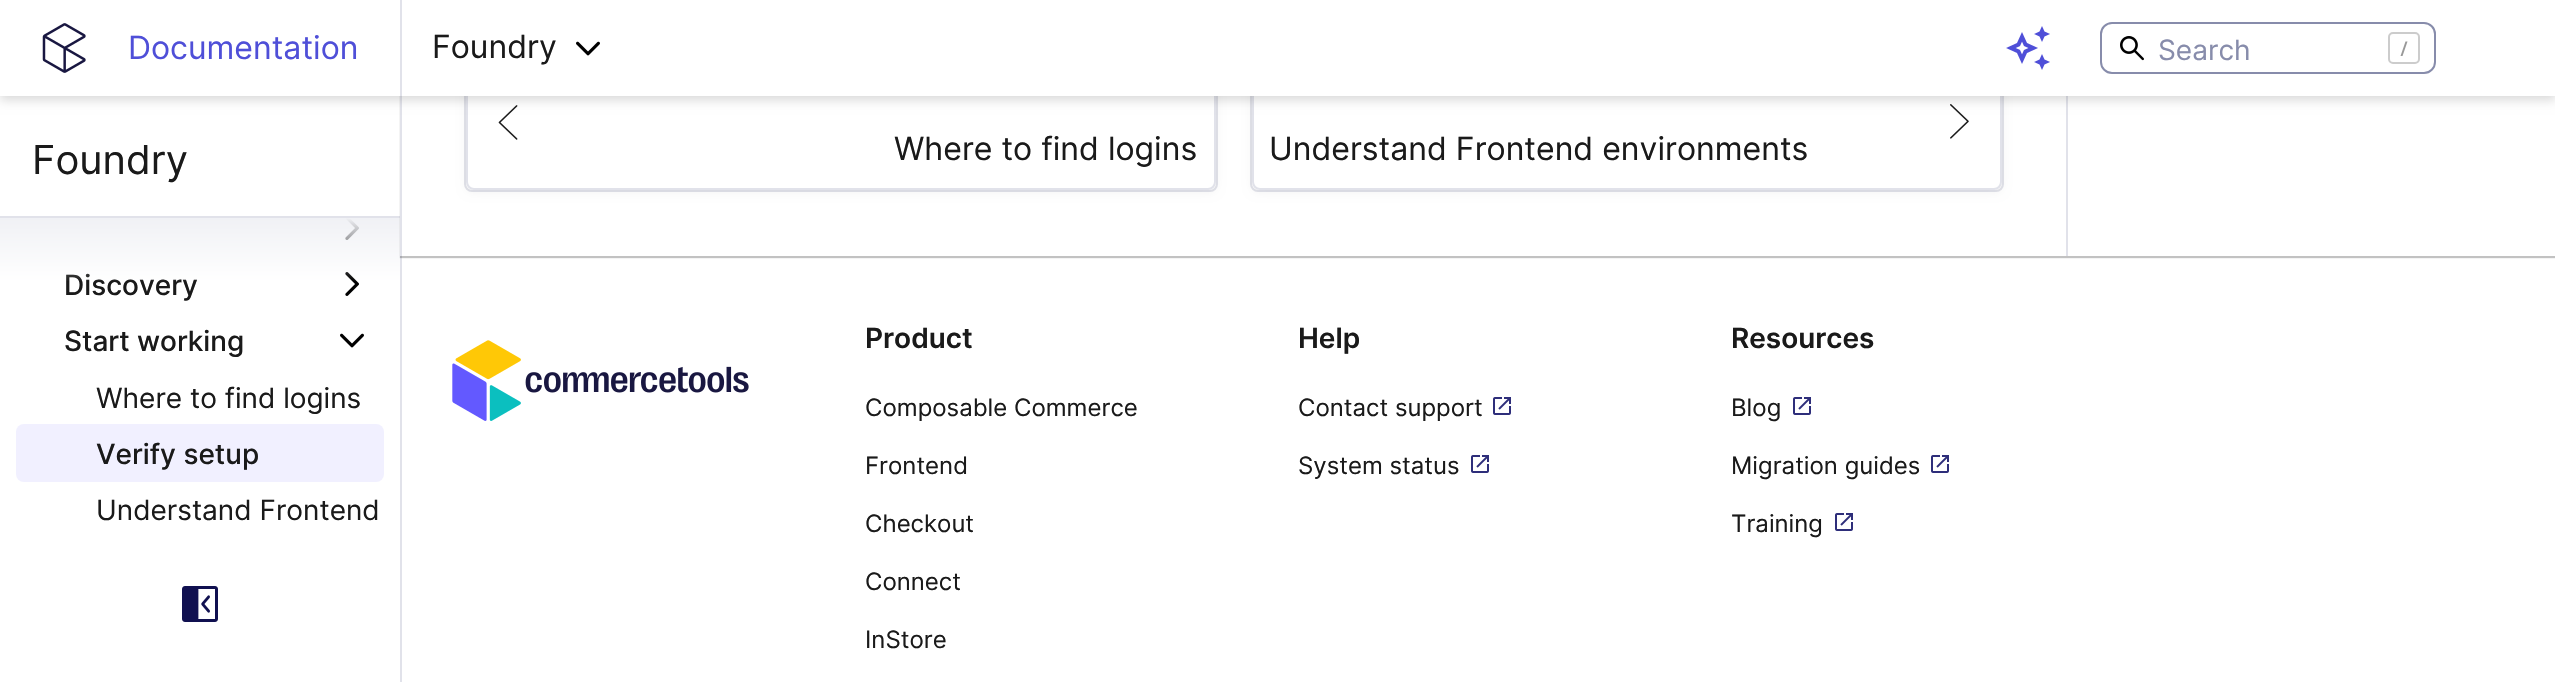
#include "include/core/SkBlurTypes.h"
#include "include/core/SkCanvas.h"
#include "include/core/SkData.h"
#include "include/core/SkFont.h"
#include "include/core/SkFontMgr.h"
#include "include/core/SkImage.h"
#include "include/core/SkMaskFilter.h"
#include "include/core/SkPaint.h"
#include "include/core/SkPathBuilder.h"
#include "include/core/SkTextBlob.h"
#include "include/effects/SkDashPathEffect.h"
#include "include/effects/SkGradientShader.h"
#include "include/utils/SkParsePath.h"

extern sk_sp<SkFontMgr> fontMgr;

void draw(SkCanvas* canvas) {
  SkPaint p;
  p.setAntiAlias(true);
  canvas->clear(SK_ColorWHITE);
  p.setColor(SkColorSetRGB(225, 226, 234));
  canvas->drawRect(SkRect::MakeLTRB(400, 96, 402, 682), p);
  canvas->drawRect(SkRect::MakeLTRB(0, 216, 400, 218), p);
  canvas->drawImageRect(SkImages::DeferredFromEncodedData(SkData::MakeFromFileName("images/5.png")), SkRect::MakeLTRB(345, 218, 359, 240), SkSamplingOptions());
  canvas->drawImageRect(SkImages::DeferredFromEncodedData(SkData::MakeFromFileName("images/6.png")), SkRect::MakeLTRB(345, 272, 359, 296), SkSamplingOptions());
  canvas->drawImageRect(SkImages::DeferredFromEncodedData(SkData::MakeFromFileName("images/2.png")), SkRect::MakeLTRB(340, 333, 364, 348), SkSamplingOptions());
  p.setColor(SkColorSetRGB(241, 240, 255));
  canvas->drawRoundRect(SkRect::MakeLTRB(16, 424, 384, 482), 8, 8, p);
  canvas->drawImageRect(SkImages::DeferredFromEncodedData(SkData::MakeFromFileName("images/7.png")), SkRect::MakeLTRB(182, 586, 218, 622), SkSamplingOptions());
  canvas->drawImageRect(SkImages::DeferredFromEncodedData(SkData::MakeFromFileName("images/10.png")), SkRect::MakeLTRB(452, 340, 749, 421), SkSamplingOptions());
  canvas->drawImageRect(SkImages::DeferredFromEncodedData(SkData::MakeFromFileName("images/11.png")), SkRect::MakeLTRB(1493, 397, 1511, 415), SkSamplingOptions());
  canvas->drawImageRect(SkImages::DeferredFromEncodedData(SkData::MakeFromFileName("images/11.png")), SkRect::MakeLTRB(1471, 455, 1489, 473), SkSamplingOptions());
  canvas->drawImageRect(SkImages::DeferredFromEncodedData(SkData::MakeFromFileName("images/11.png")), SkRect::MakeLTRB(1793, 397, 1811, 415), SkSamplingOptions());
  canvas->drawImageRect(SkImages::DeferredFromEncodedData(SkData::MakeFromFileName("images/11.png")), SkRect::MakeLTRB(1931, 455, 1949, 473), SkSamplingOptions());
  canvas->drawImageRect(SkImages::DeferredFromEncodedData(SkData::MakeFromFileName("images/11.png")), SkRect::MakeLTRB(1835, 513, 1853, 531), SkSamplingOptions());
  SkFont font1(fontMgr->matchFamilyStyle("Inter", SkFontStyle::Normal()), 40);
  font1.setSubpixel(true);
  p.setColor(SkColorSetRGB(26, 26, 26));
  canvas->drawString("Foundry", 32, 174, font1, p);
  SkFont font2(fontMgr->matchFamilyStyle("Inter", SkFontStyle(500, SkFontStyle::kNormal_Width, SkFontStyle::kUpright_Slant)), 28);
  font2.setSubpixel(true);
  canvas->drawString("Discovery", 64, 295, font2, p);
  {
    const SkColor colors[] = {SkColorSetRGB(240, 241, 245), SkColorSetARGB(0, 240, 241, 245)};
    const float stops[] = {0, 1};
    const SkPoint ends[] = {{200, 218}, {200, 282}};
    p.setShader(SkGradientShader::MakeLinear(ends, colors, stops, 2, SkTileMode::kClamp));
    p.setAlpha(255);
  }
  canvas->drawRect(SkRect::MakeLTRB(0, 218, 400, 281), p);
  p.setShader(nullptr);
  p.setColor(SkColorSetRGB(26, 26, 26));
  canvas->drawString("Start working", 64, 351, font2, p);
  SkFont font3(fontMgr->matchFamilyStyle("Inter", SkFontStyle::Normal()), 28);
  font3.setSubpixel(true);
  canvas->drawString("Where to find logins", 96, 408, font3, p);
  canvas->drawString("Verify setup", 96, 464, font2, p);
  canvas->drawString("Understand Frontend", 96, 520, font3, p);
  canvas->save();
  canvas->clipPath(SkPathBuilder(SkPathFillType::kEvenOdd).moveTo(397, 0).lineTo(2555, 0).lineTo(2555, 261).lineTo(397, 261).close().moveTo(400, -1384).lineTo(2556, -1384).lineTo(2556, 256).lineTo(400, 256).close().detach(), true);
  p.setColor(SkColorSetARGB(61, 0, 0, 0));
  p.setMaskFilter(SkMaskFilter::MakeBlur(kNormal_SkBlurStyle, 0.5f));
  canvas->drawRect(SkRect::MakeLTRB(400, -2, 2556, 258), p);
  p.setMaskFilter(nullptr);
  canvas->restore();
  p.setColor(SkColorSetRGB(225, 226, 234));
  canvas->drawRect(SkRect::MakeLTRB(2066, 96, 2068, 256), p);
  p.setStyle(SkPaint::kStroke_Style);
  p.setStrokeWidth(2);
  canvas->drawRoundRect(SkRect::MakeLTRB(465, 55, 1217, 191), 7, 7, p);
  p.setStyle(SkPaint::kFill_Style);
  p.setColor(SkColorSetARGB(13, 0, 0, 0));
  p.setMaskFilter(SkMaskFilter::MakeBlur(kNormal_SkBlurStyle, 5));
  canvas->drawRoundRect(SkRect::MakeLTRB(466, 58, 1216, 192), 8, 8, p);
  p.setMaskFilter(nullptr);
  p.setColor(SK_ColorWHITE);
  canvas->drawRoundRect(SkRect::MakeLTRB(467, 57, 1215, 189), 7, 7, p);
  p.setStyle(SkPaint::kStroke_Style);
  p.setColor(SkColorSetRGB(225, 226, 234));
  canvas->drawRoundRect(SkRect::MakeLTRB(467, 57, 1215, 189), 7, 7, p);
  canvas->drawImageRect(SkImages::DeferredFromEncodedData(SkData::MakeFromFileName("images/8.png")), SkRect::MakeLTRB(498, 105, 518, 140), SkSamplingOptions());
  SkFont font4(fontMgr->matchFamilyStyle("Inter", SkFontStyle::Normal()), 32);
  font4.setSubpixel(true);
  p.setStyle(SkPaint::kFill_Style);
  p.setColor(SkColorSetRGB(26, 26, 26));
  canvas->drawString("Where to find logins", 894, 160, font4, p);
  p.setStyle(SkPaint::kStroke_Style);
  p.setColor(SkColorSetRGB(225, 226, 234));
  canvas->drawRoundRect(SkRect::MakeLTRB(1251, 55, 2003, 191), 7, 7, p);
  p.setStyle(SkPaint::kFill_Style);
  p.setColor(SkColorSetARGB(13, 0, 0, 0));
  p.setMaskFilter(SkMaskFilter::MakeBlur(kNormal_SkBlurStyle, 5));
  canvas->drawRoundRect(SkRect::MakeLTRB(1252, 58, 2002, 192), 8, 8, p);
  p.setMaskFilter(nullptr);
  p.setColor(SK_ColorWHITE);
  canvas->drawRoundRect(SkRect::MakeLTRB(1253, 57, 2001, 189), 7, 7, p);
  p.setStyle(SkPaint::kStroke_Style);
  p.setColor(SkColorSetRGB(225, 226, 234));
  canvas->drawRoundRect(SkRect::MakeLTRB(1253, 57, 2001, 189), 7, 7, p);
  canvas->drawImageRect(SkImages::DeferredFromEncodedData(SkData::MakeFromFileName("images/9.png")), SkRect::MakeLTRB(1950, 104, 1969, 139), SkSamplingOptions());
  p.setStyle(SkPaint::kFill_Style);
  p.setColor(SkColorSetARGB(38, 0, 0, 0));
  p.setMaskFilter(SkMaskFilter::MakeBlur(kNormal_SkBlurStyle, 5));
  canvas->drawRect(SkRect::MakeLTRB(0, 4, 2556, 100), p);
  p.setMaskFilter(nullptr);
  p.setColor(SK_ColorWHITE);
  canvas->drawRect(SkRect::MakeLTRB(0, 0, 2555, 96), p);
  p.setStyle(SkPaint::kStroke_Style);
  p.setColor(SkColorSetRGB(135, 140, 171));
  canvas->drawRoundRect(SkRect::MakeLTRB(2101, 23, 2435, 73), 11, 11, p);
  p.setColor(SkColorSetRGB(204, 204, 204));
  canvas->drawRoundRect(SkRect::MakeLTRB(2389, 33, 2419, 63), 4, 4, p);
  p.setStyle(SkPaint::kFill_Style);
  p.setColor(SkColorSetRGB(153, 153, 153));
  canvas->drawPath(SkPathBuilder().moveTo(2402.5f, 56).lineTo(2407.5f, 41.5f).lineTo(2405.5f, 41.5f).lineTo(2400.5f, 56).close().detach(), p);
  canvas->drawImageRect(SkImages::DeferredFromEncodedData(SkData::MakeFromFileName("images/4.png")), SkRect::MakeLTRB(2120, 36, 2144, 61), SkSamplingOptions());
  p.setColor(SkColorSetRGB(135, 140, 171));
  canvas->drawString("Search", 2158, 60, font3, p);
  canvas->drawImageRect(SkImages::DeferredFromEncodedData(SkData::MakeFromFileName("images/2.png")), SkRect::MakeLTRB(576, 41, 600, 56), SkSamplingOptions());
  canvas->drawImageRect(SkImages::DeferredFromEncodedData(SkData::MakeFromFileName("images/1.png")), SkRect::MakeLTRB(42, 23, 86, 73), SkSamplingOptions());
  p.setColor(SkColorSetRGB(79, 79, 216));
  canvas->drawString("Documentation", 128, 59, font4, p);
  canvas->drawImageRect(SkImages::DeferredFromEncodedData(SkData::MakeFromFileName("images/3.png")), SkRect::MakeLTRB(2006, 26, 2050, 70), SkSamplingOptions());
  p.setColor(SkColorSetRGB(26, 26, 26));
  canvas->drawString("Foundry", 432, 58, font4, p);
  p.setColor(SkColorSetRGB(225, 226, 234));
  canvas->drawRect(SkRect::MakeLTRB(400, 0, 402, 96), p);
  p.setColor(SkColorSetRGB(26, 26, 26));
  canvas->drawString("Understand Frontend environments", 1269, 160, font4, p);
  SkFont font5(fontMgr->matchFamilyStyle("Inter", SkFontStyle(600, SkFontStyle::kNormal_Width, SkFontStyle::kUpright_Slant)), 28);
  font5.setSubpixel(true);
  canvas->drawString("Product", 865, 348, font5, p);
  SkFont font6(fontMgr->matchFamilyStyle("Inter", SkFontStyle::Normal()), 24);
  font6.setSubpixel(true);
  canvas->drawString("Composable Commerce", 865, 416, font6, p);
  canvas->drawString("Frontend", 865, 474, font6, p);
  canvas->drawString("Checkout", 865, 532, font6, p);
  canvas->drawString("Connect", 865, 590, font6, p);
  canvas->drawString("InStore", 865, 648, font6, p);
  canvas->drawString("Help", 1298, 348, font5, p);
  canvas->drawString("Contact support", 1298, 416, font6, p);
  canvas->drawString("System status", 1298, 474, font6, p);
  canvas->drawString("Resources", 1731, 348, font5, p);
  canvas->drawString("Blog", 1731, 416, font6, p);
  canvas->drawString("Migration guides", 1731, 474, font6, p);
  canvas->drawString("Training", 1731, 532, font6, p);
}
